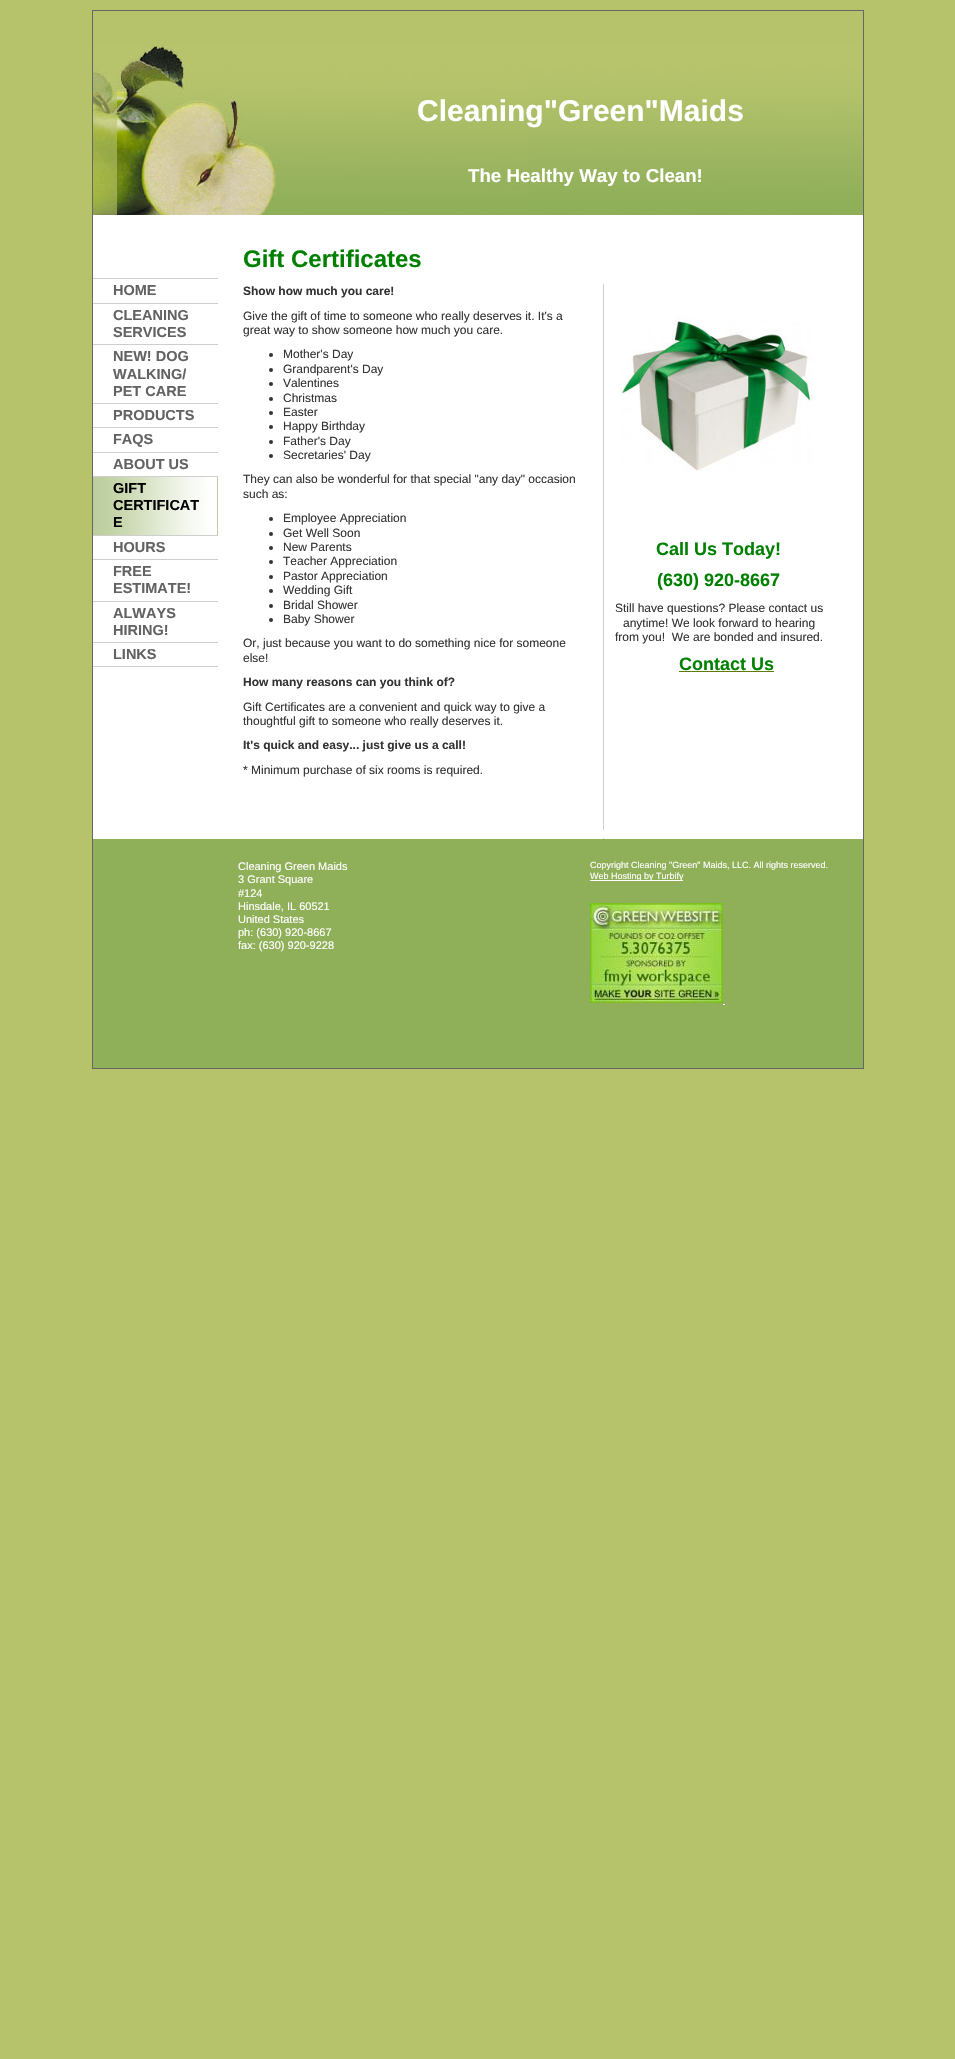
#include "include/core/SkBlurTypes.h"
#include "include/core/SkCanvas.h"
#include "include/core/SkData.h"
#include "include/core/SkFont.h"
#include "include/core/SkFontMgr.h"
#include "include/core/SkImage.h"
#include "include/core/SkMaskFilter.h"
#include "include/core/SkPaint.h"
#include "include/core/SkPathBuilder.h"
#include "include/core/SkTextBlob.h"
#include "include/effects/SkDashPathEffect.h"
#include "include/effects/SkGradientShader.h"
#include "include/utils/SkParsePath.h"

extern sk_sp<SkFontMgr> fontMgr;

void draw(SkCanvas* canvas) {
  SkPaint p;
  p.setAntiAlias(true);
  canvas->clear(SkColorSetRGB(182, 195, 107));
  p.setColor(SK_ColorWHITE);
  canvas->drawRect(SkRect::MakeLTRB(93, 215, 863, 839), p);
  p.setStyle(SkPaint::kStroke_Style);
  p.setStrokeWidth(1);
  p.setColor(SkColorSetRGB(102, 102, 102));
  canvas->drawRect(SkRect::MakeLTRB(92.5f, 10.5f, 863.5f, 1068.5f), p);
  canvas->drawImageRect(SkImages::DeferredFromEncodedData(SkData::MakeFromFileName("images/1.png")), SkRect::MakeLTRB(93, 45, 863, 215), SkSamplingOptions());
  p.setStyle(SkPaint::kFill_Style);
  p.setColor(SkColorSetRGB(207, 207, 207));
  canvas->drawRect(SkRect::MakeLTRB(93, 278, 218, 279), p);
  canvas->drawRect(SkRect::MakeLTRB(93, 303, 218, 304), p);
  canvas->drawRect(SkRect::MakeLTRB(93, 344, 218, 345), p);
  canvas->drawRect(SkRect::MakeLTRB(93, 403, 218, 404), p);
  canvas->drawRect(SkRect::MakeLTRB(93, 427, 218, 428), p);
  canvas->drawRect(SkRect::MakeLTRB(93, 452, 218, 453), p);
  canvas->drawRect(SkRect::MakeLTRB(93, 476, 218, 477), p);
  canvas->drawImageRect(SkImages::DeferredFromEncodedData(SkData::MakeFromFileName("images/2.png")), SkRect::MakeLTRB(93, 477, 218, 535), SkSamplingOptions());
  canvas->drawRect(SkRect::MakeLTRB(93, 535, 218, 536), p);
  canvas->drawRect(SkRect::MakeLTRB(93, 559, 218, 560), p);
  canvas->drawRect(SkRect::MakeLTRB(93, 601, 218, 602), p);
  canvas->drawRect(SkRect::MakeLTRB(93, 642, 218, 643), p);
  canvas->drawRect(SkRect::MakeLTRB(93, 666, 218, 667), p);
  canvas->drawImageRect(SkImages::DeferredFromEncodedData(SkData::MakeFromFileName("images/3.png")), SkRect::MakeLTRB(603, 284, 604, 839), SkSamplingOptions());
  p.setColor(SkColorSetRGB(51, 51, 51));
  canvas->drawCircle(271, 355, 2, p);
  canvas->drawCircle(271, 370, 2, p);
  canvas->drawCircle(271, 384, 2, p);
  canvas->drawCircle(271, 399, 2, p);
  canvas->drawCircle(271, 413, 2, p);
  canvas->drawCircle(271, 427, 2, p);
  canvas->drawCircle(271, 442, 2, p);
  canvas->drawCircle(271, 456, 2, p);
  canvas->drawCircle(271, 519, 2, p);
  canvas->drawCircle(271, 534, 2, p);
  canvas->drawCircle(271, 548, 2, p);
  canvas->drawCircle(271, 562, 2, p);
  canvas->drawCircle(271, 577, 2, p);
  canvas->drawCircle(271, 591, 2, p);
  canvas->drawCircle(271, 606, 2, p);
  canvas->drawCircle(271, 620, 2, p);
  canvas->drawImageRect(SkImages::DeferredFromEncodedData(SkData::MakeFromFileName("images/4.png")), SkRect::MakeLTRB(620, 317, 813, 471), SkSamplingOptions());
  p.setColor(SkColorSetRGB(95, 122, 5));
  canvas->drawRect(SkRect::MakeLTRB(679, 671, 774, 672), p);
  p.setColor(SkColorSetRGB(143, 175, 89));
  canvas->drawRect(SkRect::MakeLTRB(93, 839, 863, 1068), p);
  p.setColor(SK_ColorWHITE);
  canvas->drawRect(SkRect::MakeLTRB(590, 880, 683, 881), p);
  canvas->drawImageRect(SkImages::DeferredFromEncodedData(SkData::MakeFromFileName("images/5.png")), SkRect::MakeLTRB(590, 903, 723, 1003), SkSamplingOptions());
  canvas->drawRect(SkRect::MakeLTRB(723, 1004, 725, 1005), p);
  SkFont font1(fontMgr->matchFamilyStyle("Liberation Sans", SkFontStyle::Bold()), 30);
  font1.setSubpixel(true);
  canvas->drawString("Cleaning\"Green\"Maids", 417, 121, font1, p);
  SkFont font2(fontMgr->matchFamilyStyle("Liberation Sans", SkFontStyle::Bold()), 18.7f);
  font2.setSubpixel(true);
  canvas->drawString("The Healthy Way to Clean!", 468, 182, font2, p);
  SkFont font3(fontMgr->matchFamilyStyle("Liberation Sans", SkFontStyle::Bold()), 14.5f);
  font3.setSubpixel(true);
  p.setColor(SkColorSetRGB(98, 98, 98));
  canvas->drawString("HOME", 113, 295, font3, p);
  canvas->drawString("CLEANING", 113, 320, font3, p);
  canvas->drawString("SERVICES", 113, 337, font3, p);
  canvas->drawString("NEW! DOG", 113, 361, font3, p);
  canvas->drawString("WALKING/", 113, 379, font3, p);
  canvas->drawString("PET CARE", 113, 396, font3, p);
  canvas->drawString("PRODUCTS", 113, 420, font3, p);
  canvas->drawString("FAQS", 113, 444, font3, p);
  canvas->drawString("ABOUT US", 113, 469, font3, p);
  p.setColor(SK_ColorBLACK);
  canvas->drawString("GIFT", 113, 493, font3, p);
  canvas->drawString("CERTIFICAT", 113, 510, font3, p);
  canvas->drawString("E", 113, 527, font3, p);
  p.setColor(SkColorSetRGB(98, 98, 98));
  canvas->drawString("HOURS", 113, 552, font3, p);
  canvas->drawString("FREE", 113, 576, font3, p);
  canvas->drawString("ESTIMATE!", 113, 593, font3, p);
  canvas->drawString("ALWAYS", 113, 618, font3, p);
  canvas->drawString("HIRING!", 113, 635, font3, p);
  canvas->drawString("LINKS", 113, 659, font3, p);
  SkFont font4(fontMgr->matchFamilyStyle("Liberation Sans", SkFontStyle::Bold()), 24);
  font4.setSubpixel(true);
  p.setColor(SkColorSetRGB(0, 128, 0));
  canvas->drawString("Gift Certificates", 243, 267, font4, p);
  SkFont font5(fontMgr->matchFamilyStyle("Liberation Sans", SkFontStyle::Bold()), 12);
  font5.setSubpixel(true);
  p.setColor(SkColorSetRGB(51, 51, 51));
  canvas->drawString("Show how much you care!", 243, 295, font5, p);
  SkFont font6(fontMgr->matchFamilyStyle("Liberation Sans", SkFontStyle::Normal()), 12);
  font6.setSubpixel(true);
  canvas->drawString("Give the gift of time to someone who really deserves it. It's a", 243, 320, font6, p);
  canvas->drawString("great way to show someone how much you care.", 243, 334, font6, p);
  canvas->drawString("Mother's Day", 283, 358, font6, p);
  canvas->drawString("Grandparent's Day", 283, 373, font6, p);
  canvas->drawString("Valentines", 283, 387, font6, p);
  canvas->drawString("Christmas", 283, 402, font6, p);
  canvas->drawString("Easter", 283, 416, font6, p);
  canvas->drawString("Happy Birthday", 283, 430, font6, p);
  canvas->drawString("Father's Day", 283, 445, font6, p);
  canvas->drawString("Secretaries' Day", 283, 459, font6, p);
  canvas->drawString("They can also be wonderful for that special \"any day\" occasion", 243, 483, font6, p);
  canvas->drawString("such as:", 243, 498, font6, p);
  canvas->drawString("Employee Appreciation", 283, 522, font6, p);
  canvas->drawString("Get Well Soon", 283, 537, font6, p);
  canvas->drawString("New Parents", 283, 551, font6, p);
  canvas->drawString("Teacher Appreciation", 283, 565, font6, p);
  canvas->drawString("Pastor Appreciation", 283, 580, font6, p);
  canvas->drawString("Wedding Gift", 283, 594, font6, p);
  canvas->drawString("Bridal Shower", 283, 609, font6, p);
  canvas->drawString("Baby Shower", 283, 623, font6, p);
  canvas->drawString("Or, just because you want to do something nice for someone", 243, 647, font6, p);
  canvas->drawString("else!", 243, 662, font6, p);
  canvas->drawString("How many reasons can you think of?", 243, 686, font5, p);
  canvas->drawString("Gift Certificates are a convenient and quick way to give a", 243, 711, font6, p);
  canvas->drawString("thoughtful gift to someone who really deserves it.", 243, 725, font6, p);
  canvas->drawString("It's quick and easy... just give us a call!", 243, 749, font5, p);
  canvas->drawString("* Minimum purchase of six rooms is required.", 243, 774, font6, p);
  SkFont font7(fontMgr->matchFamilyStyle("Liberation Sans", SkFontStyle::Bold()), 18);
  font7.setSubpixel(true);
  p.setColor(SkColorSetRGB(0, 128, 0));
  canvas->drawString("Call Us Today!", 656, 555, font7, p);
  canvas->drawString("(630) 920-8667", 657, 586, font7, p);
  p.setColor(SkColorSetRGB(51, 51, 51));
  canvas->drawString("Still have questions? Please contact us", 615, 612, font6, p);
  canvas->drawString("anytime! We look forward to hearing", 623, 627, font6, p);
  canvas->drawString("from you!  We are bonded and insured.", 615, 641, font6, p);
  p.setColor(SkColorSetRGB(0, 128, 0));
  canvas->drawString("Contact Us", 679, 670, font7, p);
  SkFont font8(fontMgr->matchFamilyStyle("Liberation Sans", SkFontStyle::Normal()), 11);
  font8.setSubpixel(true);
  p.setColor(SK_ColorWHITE);
  canvas->drawString("Cleaning Green Maids", 238, 870, font8, p);
  canvas->drawString("3 Grant Square", 238, 883, font8, p);
  canvas->drawString("#124", 238, 897, font8, p);
  canvas->drawString("Hinsdale, IL 60521", 238, 910, font8, p);
  canvas->drawString("United States", 238, 923, font8, p);
  canvas->drawString("ph: (630) 920-8667", 238, 936, font8, p);
  canvas->drawString("fax: (630) 920-9228", 238, 949, font8, p);
  SkFont font9(fontMgr->matchFamilyStyle("Liberation Sans", SkFontStyle::Normal()), 9);
  font9.setSubpixel(true);
  canvas->drawString("Copyright Cleaning \"Green\" Maids, LLC. All rights reserved.", 590, 868, font9, p);
  canvas->drawString("Web Hosting by Turbify", 590, 879, font9, p);
}
